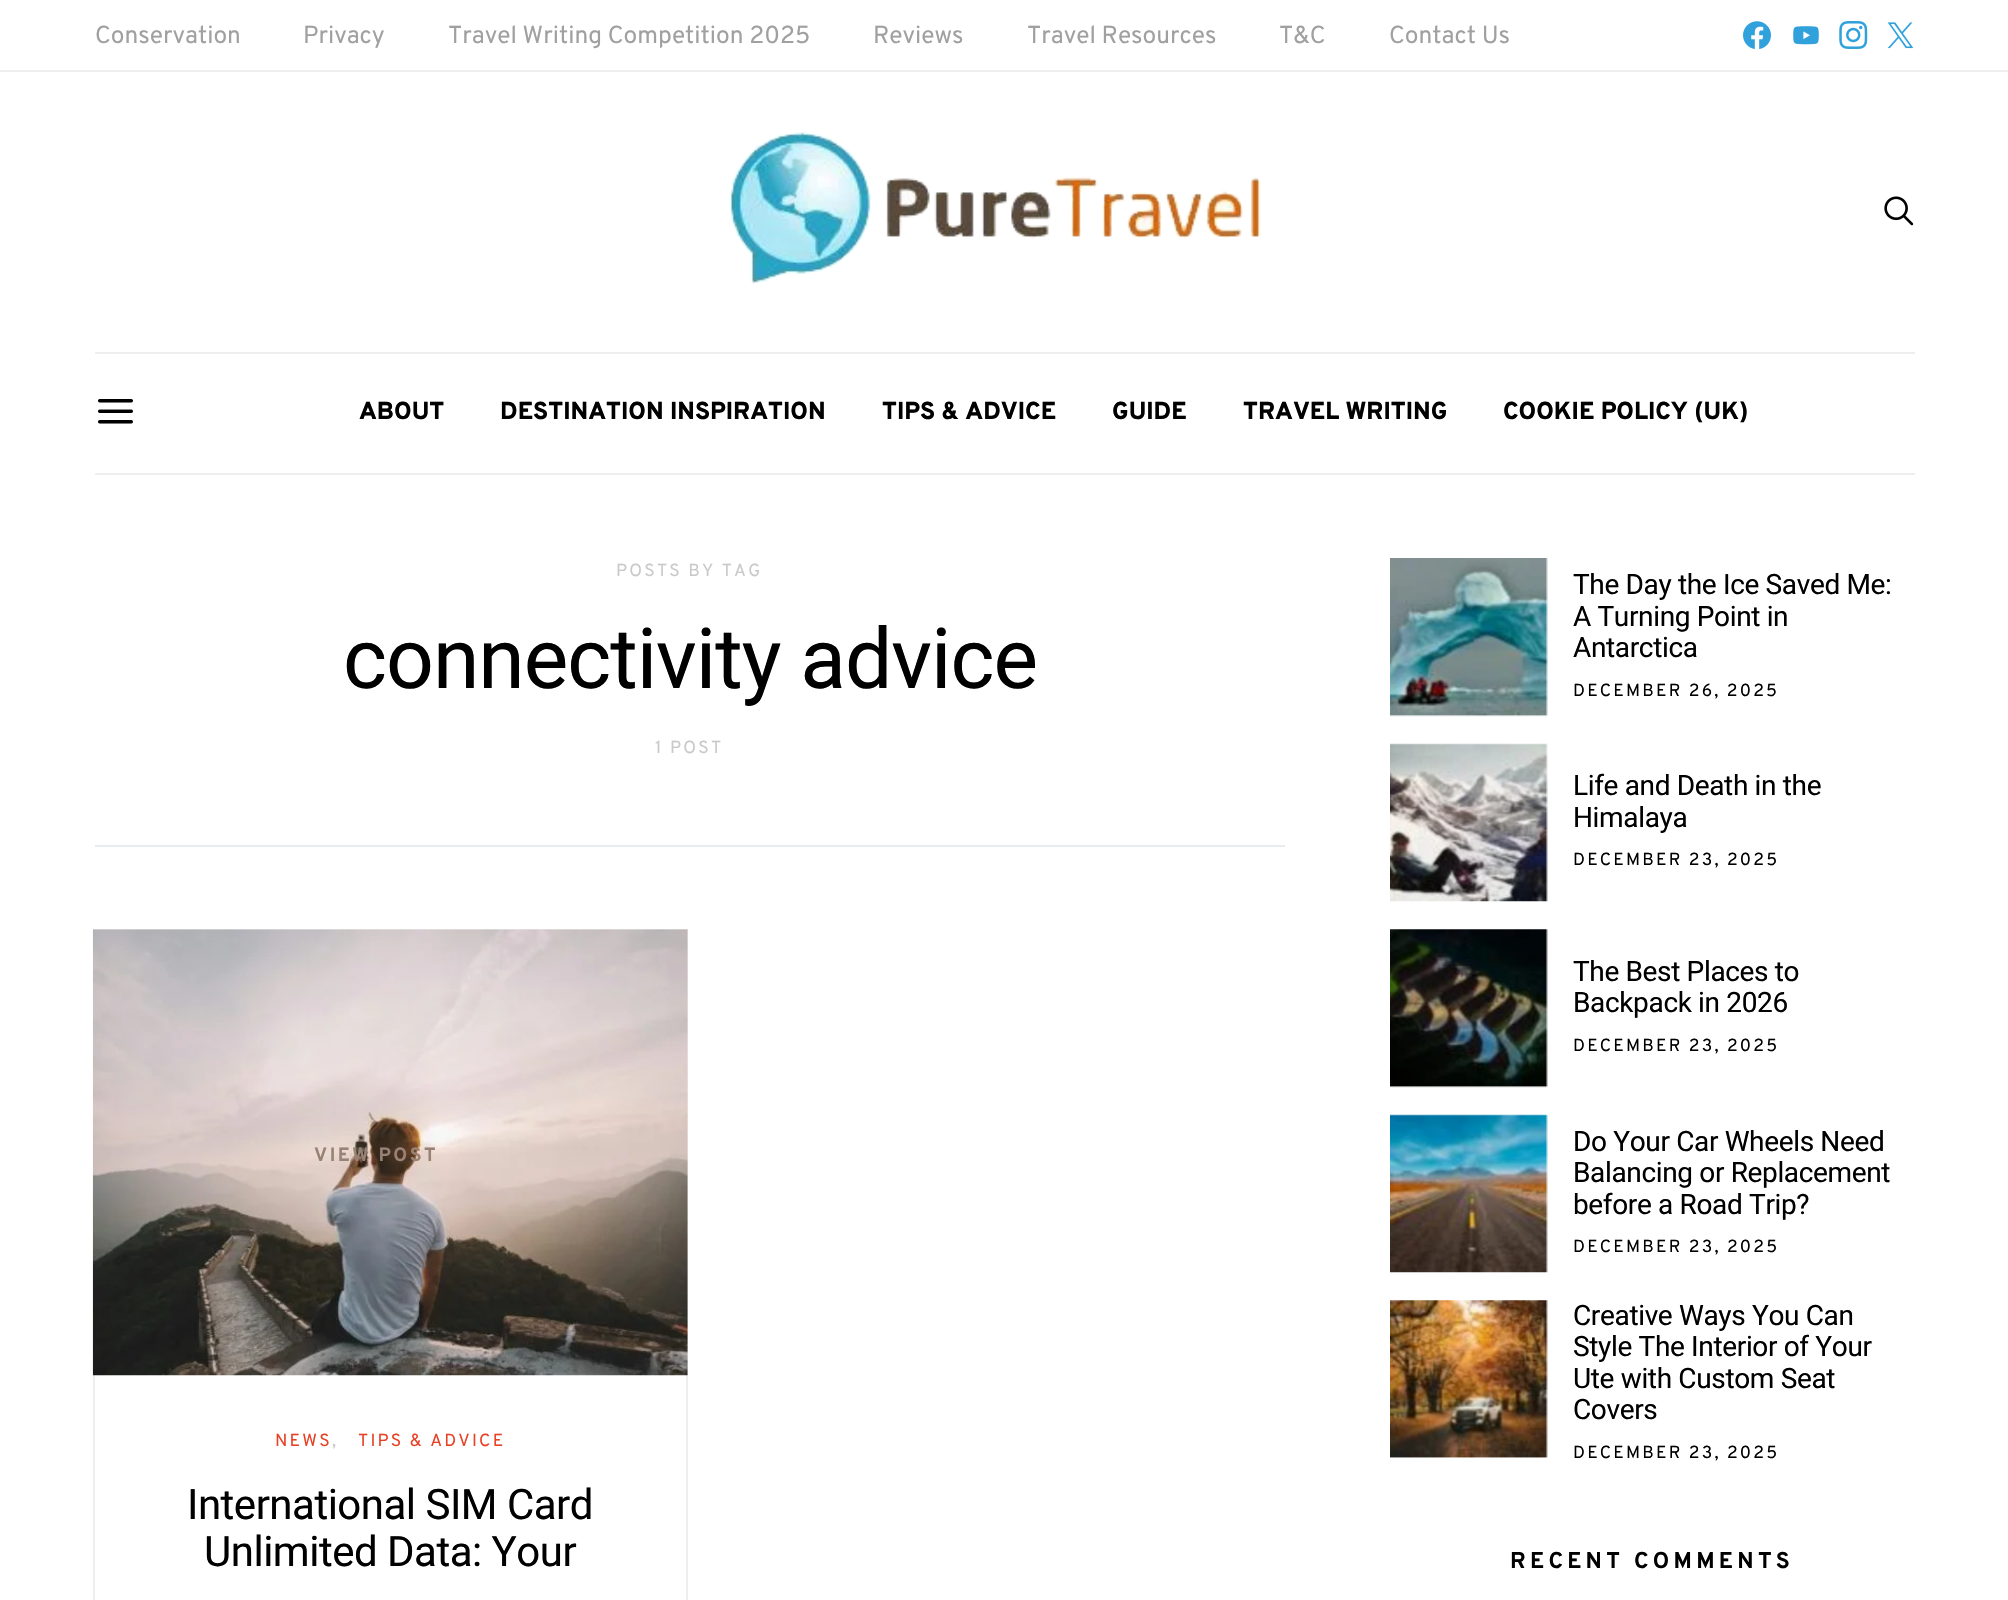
#include "include/core/SkBlurTypes.h"
#include "include/core/SkCanvas.h"
#include "include/core/SkData.h"
#include "include/core/SkFont.h"
#include "include/core/SkFontMgr.h"
#include "include/core/SkImage.h"
#include "include/core/SkMaskFilter.h"
#include "include/core/SkPaint.h"
#include "include/core/SkPathBuilder.h"
#include "include/core/SkTextBlob.h"
#include "include/effects/SkDashPathEffect.h"
#include "include/effects/SkGradientShader.h"
#include "include/utils/SkParsePath.h"

extern sk_sp<SkFontMgr> fontMgr;

void draw(SkCanvas* canvas) {
  SkPaint p;
  p.setAntiAlias(true);
  auto spacedText = [&](const char* s, float x, float y, const SkFont& font, const SkPaint& ink, float letter, float word) {
    std::vector<SkGlyphID> glyphs(font.countText(s, strlen(s), SkTextEncoding::kUTF8));
    std::vector<float> xs(glyphs.size());
    font.textToGlyphs(s, strlen(s), SkTextEncoding::kUTF8, glyphs);
    font.getXPos(glyphs, xs, x);
    float extra = 0;
    for (size_t i = 0; i < glyphs.size(); i++) {
      xs[i] += extra;
      extra += letter + word * (glyphs[i] == font.unicharToGlyph(' '));
    }
    canvas->drawTextBlob(SkTextBlob::MakeFromPosHGlyphs(glyphs, xs, y, font), 0, 0, ink);
  };
  canvas->clear(SK_ColorWHITE);
  p.setColor(SkColorSetRGB(238, 238, 238));
  canvas->drawRect(SkRect::MakeLTRB(0, 70, 2008, 72), p);
  canvas->drawImageRect(SkImages::DeferredFromEncodedData(SkData::MakeFromFileName("images/1.png")), SkRect::MakeLTRB(1743, 21, 1771, 49), SkSamplingOptions());
  canvas->drawImageRect(SkImages::DeferredFromEncodedData(SkData::MakeFromFileName("images/2.png")), SkRect::MakeLTRB(1793, 26, 1819, 45), SkSamplingOptions());
  canvas->drawImageRect(SkImages::DeferredFromEncodedData(SkData::MakeFromFileName("images/3.png")), SkRect::MakeLTRB(1839, 21, 1868, 49), SkSamplingOptions());
  canvas->drawImageRect(SkImages::DeferredFromEncodedData(SkData::MakeFromFileName("images/4.png")), SkRect::MakeLTRB(1887, 22, 1914, 49), SkSamplingOptions());
  canvas->drawImageRect(SkImages::DeferredFromEncodedData(SkData::MakeFromFileName("images/5.png")), SkRect::MakeLTRB(729, 131, 1261, 284), SkSamplingOptions());
  canvas->drawImageRect(SkImages::DeferredFromEncodedData(SkData::MakeFromFileName("images/6.png")), SkRect::MakeLTRB(1884, 196, 1914, 226), SkSamplingOptions());
  canvas->drawRect(SkRect::MakeLTRB(95, 352, 1915, 354), p);
  canvas->drawRect(SkRect::MakeLTRB(95, 473, 1915, 475), p);
  canvas->drawImageRect(SkImages::DeferredFromEncodedData(SkData::MakeFromFileName("images/7.png")), SkRect::MakeLTRB(98, 399, 133, 424), SkSamplingOptions());
  p.setColor(SkColorSetRGB(233, 236, 239));
  canvas->drawRect(SkRect::MakeLTRB(95, 845, 1285, 847), p);
  p.setStyle(SkPaint::kStroke_Style);
  p.setStrokeWidth(2);
  p.setColor(SkColorSetRGB(238, 238, 238));
  canvas->drawRect(SkRect::MakeLTRB(94, 930, 687, 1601), p);
  canvas->drawImageRect(SkImages::DeferredFromEncodedData(SkData::MakeFromFileName("images/8.png")), SkRect::MakeLTRB(92, 929, 688, 1376), SkSamplingOptions());
  canvas->drawImageRect(SkImages::DeferredFromEncodedData(SkData::MakeFromFileName("images/9.png")), SkRect::MakeLTRB(1390, 558, 1548, 717), SkSamplingOptions());
  canvas->drawImageRect(SkImages::DeferredFromEncodedData(SkData::MakeFromFileName("images/10.png")), SkRect::MakeLTRB(1390, 743, 1548, 902), SkSamplingOptions());
  canvas->drawImageRect(SkImages::DeferredFromEncodedData(SkData::MakeFromFileName("images/11.png")), SkRect::MakeLTRB(1390, 929, 1548, 1088), SkSamplingOptions());
  canvas->drawImageRect(SkImages::DeferredFromEncodedData(SkData::MakeFromFileName("images/12.png")), SkRect::MakeLTRB(1390, 1114, 1548, 1273), SkSamplingOptions());
  canvas->drawImageRect(SkImages::DeferredFromEncodedData(SkData::MakeFromFileName("images/13.png")), SkRect::MakeLTRB(1390, 1300, 1548, 1458), SkSamplingOptions());
  SkFont font1(fontMgr->matchFamilyStyle("Overpass", SkFontStyle::Normal()), 24.5f);
  font1.setSubpixel(true);
  p.setStyle(SkPaint::kFill_Style);
  p.setColor(SkColorSetRGB(160, 160, 160));
  canvas->drawString("Conservation", 95, 43, font1, p);
  canvas->drawString("Privacy", 303, 43, font1, p);
  canvas->drawString("Travel Writing Competition 2025", 448, 43, font1, p);
  canvas->drawString("Reviews", 873, 43, font1, p);
  canvas->drawString("Travel Resources", 1027, 43, font1, p);
  canvas->drawString("T&C", 1279, 43, font1, p);
  canvas->drawString("Contact Us", 1389, 43, font1, p);
  SkFont font2(fontMgr->matchFamilyStyle("Overpass", SkFontStyle(800, SkFontStyle::kNormal_Width, SkFontStyle::kUpright_Slant)), 24.5f);
  font2.setSubpixel(true);
  p.setColor(SK_ColorBLACK);
  canvas->drawString("ABOUT", 359, 419, font2, p);
  canvas->drawString("DESTINATION INSPIRATION", 500, 419, font2, p);
  canvas->drawString("TIPS & ADVICE", 882, 419, font2, p);
  canvas->drawString("GUIDE", 1112, 419, font2, p);
  canvas->drawString("TRAVEL WRITING", 1243, 419, font2, p);
  canvas->drawString("COOKIE POLICY (UK)", 1503, 419, font2, p);
  SkFont font3(fontMgr->matchFamilyStyle("Overpass", SkFontStyle::Normal()), 17.5f);
  font3.setSubpixel(true);
  p.setColor(SkColorSetRGB(201, 201, 201));
  spacedText("POSTS BY TAG", 616, 576, font3, p, 2.2f, 0);
  SkFont font4(fontMgr->matchFamilyStyle("Roboto", SkFontStyle::Normal()), 84);
  font4.setSubpixel(true);
  p.setColor(SK_ColorBLACK);
  spacedText("connectivity advice", 343, 688, font4, p, -1, 0);
  p.setColor(SkColorSetRGB(201, 201, 201));
  spacedText("1 POST", 655, 753, font3, p, 2.2f, 0);
  SkFont font5(fontMgr->matchFamilyStyle("Overpass", SkFontStyle::Bold()), 19.25f);
  font5.setSubpixel(true);
  p.setColor(SkColorSetRGB(151, 130, 117));
  spacedText("VIEW POST", 314, 1161, font5, p, 2.5f, 0);
  p.setColor(SkColorSetRGB(232, 64, 36));
  spacedText("NEWS", 275, 1446, font3, p, 2.2f, 0);
  p.setColor(SkColorSetRGB(201, 201, 201));
  spacedText(",", 332, 1446, font3, p, 2.2f, 0);
  p.setColor(SkColorSetRGB(232, 64, 36));
  spacedText("TIPS & ADVICE", 358, 1446, font3, p, 2.2f, 0);
  SkFont font6(fontMgr->matchFamilyStyle("Roboto", SkFontStyle::Normal()), 42);
  font6.setSubpixel(true);
  p.setColor(SK_ColorBLACK);
  spacedText("International SIM Card", 187, 1519, font6, p, -0.5f, 0);
  spacedText("Unlimited Data: Your", 204, 1566, font6, p, -0.5f, 0);
  SkFont font7(fontMgr->matchFamilyStyle("Roboto", SkFontStyle::Normal()), 28);
  font7.setSubpixel(true);
  spacedText("The Day the Ice Saved Me:", 1573, 594, font7, p, -0.35f, 0);
  spacedText("A Turning Point in", 1573, 626, font7, p, -0.35f, 0);
  spacedText("Antarctica", 1573, 657, font7, p, -0.35f, 0);
  spacedText("DECEMBER 26, 2025", 1573, 696, font3, p, 2.2f, 0);
  spacedText("Life and Death in the", 1573, 795, font7, p, -0.35f, 0);
  spacedText("Himalaya", 1573, 827, font7, p, -0.35f, 0);
  spacedText("DECEMBER 23, 2025", 1573, 865, font3, p, 2.2f, 0);
  spacedText("The Best Places to", 1573, 981, font7, p, -0.35f, 0);
  spacedText("Backpack in 2026", 1573, 1012, font7, p, -0.35f, 0);
  spacedText("DECEMBER 23, 2025", 1573, 1051, font3, p, 2.2f, 0);
  spacedText("Do Your Car Wheels Need", 1573, 1151, font7, p, -0.35f, 0);
  spacedText("Balancing or Replacement", 1573, 1182, font7, p, -0.35f, 0);
  spacedText("before a Road Trip?", 1573, 1214, font7, p, -0.35f, 0);
  spacedText("DECEMBER 23, 2025", 1573, 1252, font3, p, 2.2f, 0);
  spacedText("Creative Ways You Can", 1573, 1325, font7, p, -0.35f, 0);
  spacedText("Style The Interior of Your", 1573, 1356, font7, p, -0.35f, 0);
  spacedText("Ute with Custom Seat", 1573, 1388, font7, p, -0.35f, 0);
  spacedText("Covers", 1573, 1419, font7, p, -0.35f, 0);
  spacedText("DECEMBER 23, 2025", 1573, 1458, font3, p, 2.2f, 0);
  SkFont font8(fontMgr->matchFamilyStyle("Overpass", SkFontStyle::Bold()), 22.75f);
  font8.setSubpixel(true);
  spacedText("RECENT COMMENTS", 1510, 1568, font8, p, 4.25f, 0);
}
